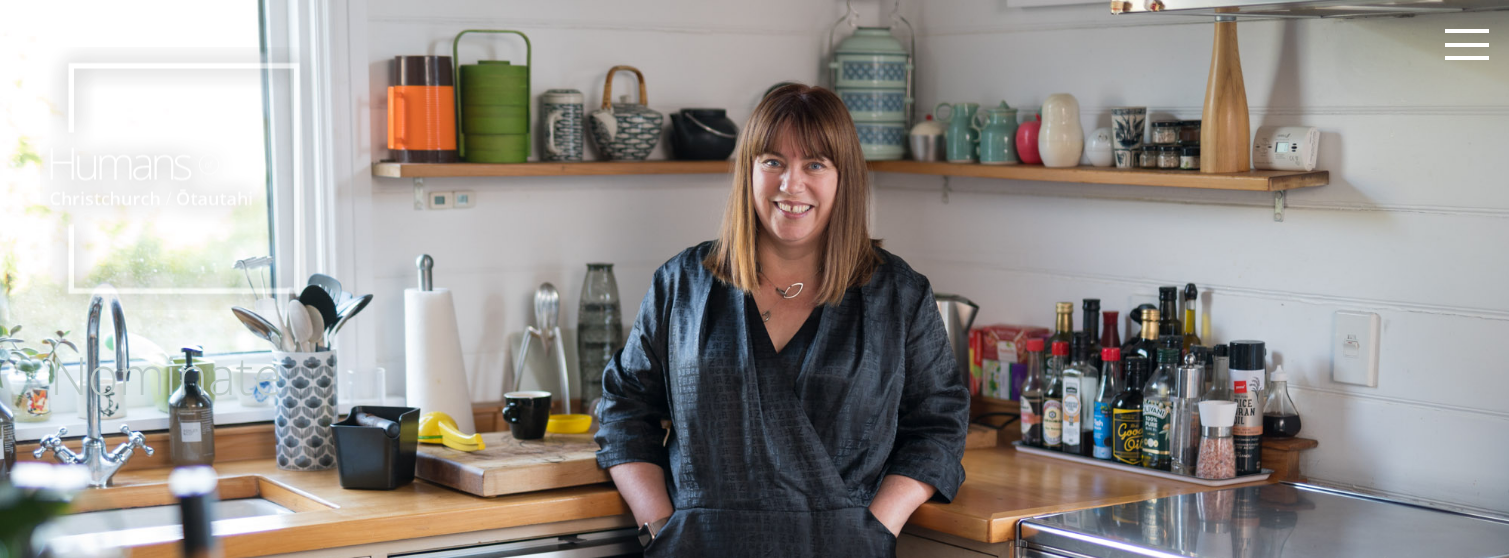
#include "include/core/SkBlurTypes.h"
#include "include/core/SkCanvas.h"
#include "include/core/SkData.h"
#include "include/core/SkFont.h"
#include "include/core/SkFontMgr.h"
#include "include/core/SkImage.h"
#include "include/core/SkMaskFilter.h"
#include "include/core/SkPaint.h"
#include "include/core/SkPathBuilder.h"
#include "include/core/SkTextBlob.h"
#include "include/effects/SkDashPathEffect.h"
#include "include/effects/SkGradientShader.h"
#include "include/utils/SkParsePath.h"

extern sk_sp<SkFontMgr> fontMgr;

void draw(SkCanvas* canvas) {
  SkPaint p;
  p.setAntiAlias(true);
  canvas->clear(SK_ColorWHITE);
  canvas->drawImageRect(SkImages::DeferredFromEncodedData(SkData::MakeFromFileName("images/1.png")), SkRect::MakeLTRB(0, 0, 1509, 558), SkSamplingOptions());
  canvas->drawImageRect(SkImages::DeferredFromEncodedData(SkData::MakeFromFileName("images/2.png")), SkRect::MakeLTRB(40, 47, 316, 310), SkSamplingOptions());
  p.setColor(SK_ColorWHITE);
  canvas->drawRect(SkRect::MakeLTRB(1445, 29, 1489, 33), p);
  canvas->drawRect(SkRect::MakeLTRB(1445, 43, 1489, 47), p);
  canvas->drawRect(SkRect::MakeLTRB(1445, 56, 1489, 60), p);
  SkFont font1(fontMgr->matchFamilyStyle("Open Sans", SkFontStyle(300, SkFontStyle::kNormal_Width, SkFontStyle::kUpright_Slant)), 52.5f);
  font1.setSubpixel(true);
  p.setColor(SkColorSetRGB(188, 202, 201));
  canvas->drawString("Nominate", 50, 395, font1, p);
}
